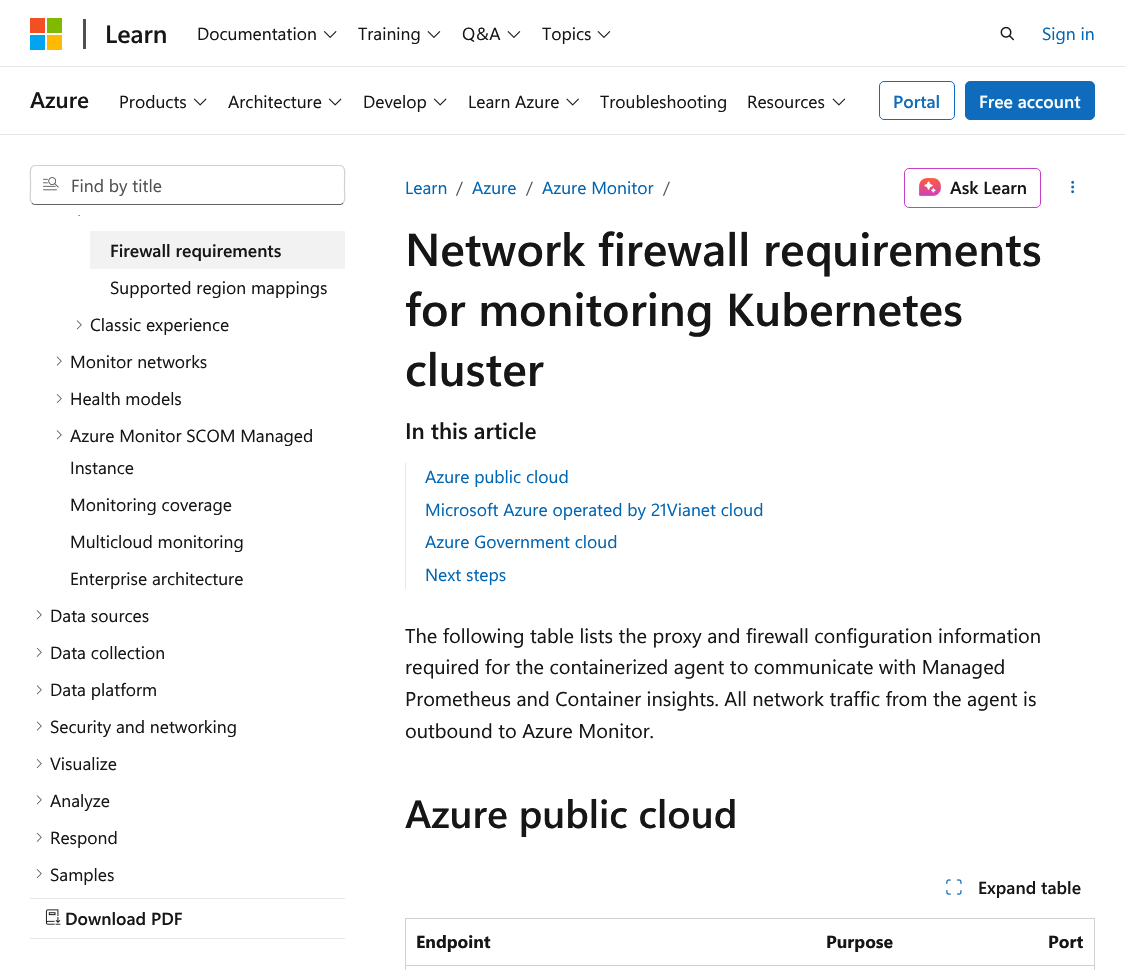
#include "include/core/SkBlurTypes.h"
#include "include/core/SkCanvas.h"
#include "include/core/SkData.h"
#include "include/core/SkFont.h"
#include "include/core/SkFontMgr.h"
#include "include/core/SkImage.h"
#include "include/core/SkMaskFilter.h"
#include "include/core/SkPaint.h"
#include "include/core/SkPathBuilder.h"
#include "include/core/SkTextBlob.h"
#include "include/effects/SkDashPathEffect.h"
#include "include/effects/SkGradientShader.h"
#include "include/utils/SkParsePath.h"

extern sk_sp<SkFontMgr> fontMgr;

void draw(SkCanvas* canvas) {
  SkPaint p;
  p.setAntiAlias(true);
  canvas->clear(SK_ColorWHITE);
  p.setColor(SkColorSetRGB(230, 230, 230));
  canvas->drawRect(SkRect::MakeLTRB(0, 66, 1125, 67), p);
  p.setColor(SkColorSetRGB(242, 80, 34));
  canvas->drawRect(SkRect::MakeLTRB(30, 18, 45, 33), p);
  p.setColor(SkColorSetRGB(127, 186, 0));
  canvas->drawRect(SkRect::MakeLTRB(47, 18, 62, 33), p);
  p.setColor(SkColorSetRGB(0, 164, 239));
  canvas->drawRect(SkRect::MakeLTRB(30, 35, 45, 50), p);
  p.setColor(SkColorSetRGB(255, 185, 0));
  canvas->drawRect(SkRect::MakeLTRB(47, 35, 62, 50), p);
  p.setColor(SkColorSetRGB(80, 80, 80));
  canvas->drawRect(SkRect::MakeLTRB(83, 19, 86, 49), p);
  canvas->drawImageRect(SkImages::DeferredFromEncodedData(SkData::MakeFromFileName("images/1.png")), SkRect::MakeLTRB(323, 31, 337, 38), SkSamplingOptions());
  canvas->drawImageRect(SkImages::DeferredFromEncodedData(SkData::MakeFromFileName("images/2.png")), SkRect::MakeLTRB(427, 31, 441, 38), SkSamplingOptions());
  canvas->drawImageRect(SkImages::DeferredFromEncodedData(SkData::MakeFromFileName("images/2.png")), SkRect::MakeLTRB(507, 31, 521, 38), SkSamplingOptions());
  canvas->drawImageRect(SkImages::DeferredFromEncodedData(SkData::MakeFromFileName("images/2.png")), SkRect::MakeLTRB(597, 31, 611, 38), SkSamplingOptions());
  canvas->drawImageRect(SkImages::DeferredFromEncodedData(SkData::MakeFromFileName("images/3.png")), SkRect::MakeLTRB(1000, 26, 1014, 41), SkSamplingOptions());
  p.setColor(SkColorSetRGB(230, 230, 230));
  canvas->drawRect(SkRect::MakeLTRB(0, 134, 1125, 135), p);
  canvas->drawImageRect(SkImages::DeferredFromEncodedData(SkData::MakeFromFileName("images/4.png")), SkRect::MakeLTRB(193, 98, 207, 106), SkSamplingOptions());
  canvas->drawImageRect(SkImages::DeferredFromEncodedData(SkData::MakeFromFileName("images/4.png")), SkRect::MakeLTRB(328, 98, 342, 106), SkSamplingOptions());
  canvas->drawImageRect(SkImages::DeferredFromEncodedData(SkData::MakeFromFileName("images/4.png")), SkRect::MakeLTRB(433, 98, 447, 106), SkSamplingOptions());
  canvas->drawImageRect(SkImages::DeferredFromEncodedData(SkData::MakeFromFileName("images/5.png")), SkRect::MakeLTRB(566, 98, 579, 106), SkSamplingOptions());
  canvas->drawImageRect(SkImages::DeferredFromEncodedData(SkData::MakeFromFileName("images/6.png")), SkRect::MakeLTRB(832, 98, 846, 106), SkSamplingOptions());
  p.setStyle(SkPaint::kStroke_Style);
  p.setStrokeWidth(1);
  p.setColor(SkColorSetRGB(15, 108, 189));
  canvas->drawRoundRect(SkRect::MakeLTRB(879.5f, 81.5f, 954.5f, 119.5f), 4.5f, 4.5f, p);
  p.setStyle(SkPaint::kFill_Style);
  canvas->drawRoundRect(SkRect::MakeLTRB(965.5f, 81.5f, 1094.5f, 119.5f), 4.5f, 4.5f, p);
  p.setStyle(SkPaint::kStroke_Style);
  canvas->drawRoundRect(SkRect::MakeLTRB(965.5f, 81.5f, 1094.5f, 119.5f), 4.5f, 4.5f, p);
  p.setStrokeWidth(1.2f);
  p.setColor(SkColorSetRGB(97, 97, 97));
  canvas->drawPath(SkPathBuilder().moveTo(343, 203).cubicTo(342.5f, 204, 341, 204.5f, 340, 204.5f).lineTo(35, 204.5f).cubicTo(34, 204.5f, 32.5f, 204, 32, 203).detach(), p);
  p.setColor(SkColorSetRGB(209, 209, 209));
  canvas->drawPath(SkPathBuilder().moveTo(32, 203).cubicTo(29, 200.5f, 30.5f, 193, 30.5f, 190).lineTo(30.5f, 180).cubicTo(30.5f, 176.5f, 28.5f, 165.5f, 35, 165.5f).lineTo(340, 165.5f).cubicTo(346.5f, 165.5f, 344.5f, 176.5f, 344.5f, 180).lineTo(344.5f, 190).cubicTo(344.5f, 193, 346, 200.5f, 343, 203).detach(), p);
  canvas->drawImageRect(SkImages::DeferredFromEncodedData(SkData::MakeFromFileName("images/7.png")), SkRect::MakeLTRB(43, 177, 59, 191), SkSamplingOptions());
  canvas->drawImageRect(SkImages::DeferredFromEncodedData(SkData::MakeFromFileName("images/8.png")), SkRect::MakeLTRB(78, 215, 81, 216), SkSamplingOptions());
  p.setStyle(SkPaint::kFill_Style);
  p.setColor(SkColorSetRGB(242, 242, 242));
  canvas->drawRect(SkRect::MakeLTRB(90, 231, 345, 269), p);
  canvas->drawImageRect(SkImages::DeferredFromEncodedData(SkData::MakeFromFileName("images/9.png")), SkRect::MakeLTRB(76, 320, 82, 330), SkSamplingOptions());
  canvas->drawImageRect(SkImages::DeferredFromEncodedData(SkData::MakeFromFileName("images/10.png")), SkRect::MakeLTRB(56, 356, 62, 366), SkSamplingOptions());
  canvas->drawImageRect(SkImages::DeferredFromEncodedData(SkData::MakeFromFileName("images/11.png")), SkRect::MakeLTRB(56, 394, 62, 404), SkSamplingOptions());
  canvas->drawImageRect(SkImages::DeferredFromEncodedData(SkData::MakeFromFileName("images/9.png")), SkRect::MakeLTRB(56, 430, 62, 440), SkSamplingOptions());
  canvas->drawImageRect(SkImages::DeferredFromEncodedData(SkData::MakeFromFileName("images/9.png")), SkRect::MakeLTRB(36, 610, 42, 620), SkSamplingOptions());
  canvas->drawImageRect(SkImages::DeferredFromEncodedData(SkData::MakeFromFileName("images/12.png")), SkRect::MakeLTRB(36, 647, 42, 657), SkSamplingOptions());
  canvas->drawImageRect(SkImages::DeferredFromEncodedData(SkData::MakeFromFileName("images/9.png")), SkRect::MakeLTRB(36, 685, 42, 695), SkSamplingOptions());
  canvas->drawImageRect(SkImages::DeferredFromEncodedData(SkData::MakeFromFileName("images/10.png")), SkRect::MakeLTRB(36, 721, 42, 731), SkSamplingOptions());
  canvas->drawImageRect(SkImages::DeferredFromEncodedData(SkData::MakeFromFileName("images/11.png")), SkRect::MakeLTRB(36, 759, 42, 769), SkSamplingOptions());
  canvas->drawImageRect(SkImages::DeferredFromEncodedData(SkData::MakeFromFileName("images/9.png")), SkRect::MakeLTRB(36, 795, 42, 805), SkSamplingOptions());
  canvas->drawImageRect(SkImages::DeferredFromEncodedData(SkData::MakeFromFileName("images/12.png")), SkRect::MakeLTRB(36, 832, 42, 842), SkSamplingOptions());
  canvas->drawImageRect(SkImages::DeferredFromEncodedData(SkData::MakeFromFileName("images/11.png")), SkRect::MakeLTRB(36, 869, 42, 879), SkSamplingOptions());
  p.setColor(SkColorSetRGB(230, 230, 230));
  canvas->drawRect(SkRect::MakeLTRB(30, 898, 345, 899), p);
  canvas->drawRect(SkRect::MakeLTRB(30, 938, 345, 939), p);
  canvas->drawImageRect(SkImages::DeferredFromEncodedData(SkData::MakeFromFileName("images/13.png")), SkRect::MakeLTRB(45, 909, 61, 925), SkSamplingOptions());
  p.setStyle(SkPaint::kStroke_Style);
  p.setStrokeWidth(1);
  p.setColor(SkColorSetRGB(199, 62, 204));
  canvas->drawRoundRect(SkRect::MakeLTRB(904.5f, 168.5f, 1040.5f, 207.5f), 4.5f, 4.5f, p);
  canvas->drawImageRect(SkImages::DeferredFromEncodedData(SkData::MakeFromFileName("images/14.png")), SkRect::MakeLTRB(919, 178, 941, 196), SkSamplingOptions());
  canvas->drawImageRect(SkImages::DeferredFromEncodedData(SkData::MakeFromFileName("images/15.png")), SkRect::MakeLTRB(1071, 180, 1075, 194), SkSamplingOptions());
  p.setStyle(SkPaint::kFill_Style);
  p.setColor(SkColorSetRGB(230, 230, 230));
  canvas->drawRect(SkRect::MakeLTRB(405, 463, 406, 589), p);
  canvas->drawImageRect(SkImages::DeferredFromEncodedData(SkData::MakeFromFileName("images/16.png")), SkRect::MakeLTRB(946, 879, 962, 895), SkSamplingOptions());
  p.setColor(SkColorSetRGB(209, 209, 209));
  canvas->drawRect(SkRect::MakeLTRB(405, 918, 1095, 919), p);
  canvas->drawRect(SkRect::MakeLTRB(1094, 918, 1095, 970), p);
  canvas->drawRect(SkRect::MakeLTRB(405, 918, 406, 970), p);
  canvas->drawRect(SkRect::MakeLTRB(405, 965, 1095, 966), p);
  SkFont font1(fontMgr->matchFamilyStyle("Segoe UI", SkFontStyle(600, SkFontStyle::kNormal_Width, SkFontStyle::kUpright_Slant)), 25);
  font1.setSubpixel(true);
  p.setColor(SkColorSetRGB(22, 22, 22));
  canvas->drawString("Learn", 105, 43, font1, p);
  SkFont font2(fontMgr->matchFamilyStyle("Segoe UI", SkFontStyle::Normal()), 17.5f);
  font2.setSubpixel(true);
  canvas->drawString("Documentation", 197, 40, font2, p);
  canvas->drawString("Training", 358, 40, font2, p);
  canvas->drawString("Q&A", 462, 40, font2, p);
  canvas->drawString("Topics", 542, 40, font2, p);
  p.setColor(SkColorSetRGB(0, 101, 179));
  canvas->drawString("Sign in", 1042, 40, font2, p);
  SkFont font3(fontMgr->matchFamilyStyle("Segoe UI", SkFontStyle(600, SkFontStyle::kNormal_Width, SkFontStyle::kUpright_Slant)), 22.5f);
  font3.setSubpixel(true);
  p.setColor(SkColorSetRGB(22, 22, 22));
  canvas->drawString("Azure", 30, 108, font3, p);
  canvas->drawString("Products", 119, 108, font2, p);
  canvas->drawString("Architecture", 228, 108, font2, p);
  canvas->drawString("Develop", 363, 108, font2, p);
  canvas->drawString("Learn Azure", 468, 108, font2, p);
  canvas->drawString("Troubleshooting", 600, 108, font2, p);
  canvas->drawString("Resources", 747, 108, font2, p);
  SkFont font4(fontMgr->matchFamilyStyle("Segoe UI", SkFontStyle(600, SkFontStyle::kNormal_Width, SkFontStyle::kUpright_Slant)), 17.5f);
  font4.setSubpixel(true);
  p.setColor(SkColorSetRGB(15, 108, 189));
  canvas->drawString("Portal", 893, 108, font4, p);
  p.setColor(SK_ColorWHITE);
  canvas->drawString("Free account", 979, 108, font4, p);
  p.setColor(SkColorSetRGB(80, 80, 80));
  canvas->drawString("Find by title", 71, 192, font2, p);
  p.setColor(SkColorSetRGB(22, 22, 22));
  canvas->drawString("Firewall requirements", 110, 257, font4, p);
  canvas->drawString("Supported region mappings", 110, 294, font2, p);
  canvas->drawString("Classic experience", 90, 331, font2, p);
  canvas->drawString("Monitor networks", 70, 368, font2, p);
  canvas->drawString("Health models", 70, 405, font2, p);
  canvas->drawString("Azure Monitor SCOM Managed", 70, 442, font2, p);
  canvas->drawString("Instance", 70, 474, font2, p);
  canvas->drawString("Monitoring coverage", 70, 511, font2, p);
  canvas->drawString("Multicloud monitoring", 70, 548, font2, p);
  canvas->drawString("Enterprise architecture", 70, 585, font2, p);
  canvas->drawString("Data sources", 50, 622, font2, p);
  canvas->drawString("Data collection", 50, 659, font2, p);
  canvas->drawString("Data platform", 50, 696, font2, p);
  canvas->drawString("Security and networking", 50, 733, font2, p);
  canvas->drawString("Visualize", 50, 770, font2, p);
  canvas->drawString("Analyze", 50, 807, font2, p);
  canvas->drawString("Respond", 50, 844, font2, p);
  canvas->drawString("Samples", 50, 881, font2, p);
  canvas->drawString("Download PDF", 65, 925, font4, p);
  p.setColor(SkColorSetRGB(0, 101, 179));
  canvas->drawString("Learn", 405, 194, font2, p);
  p.setColor(SkColorSetRGB(80, 80, 80));
  canvas->drawString("/", 456, 194, font2, p);
  p.setColor(SkColorSetRGB(0, 101, 179));
  canvas->drawString("Azure", 472, 194, font2, p);
  p.setColor(SkColorSetRGB(80, 80, 80));
  canvas->drawString("/", 526, 194, font2, p);
  p.setColor(SkColorSetRGB(0, 101, 179));
  canvas->drawString("Azure Monitor", 542, 194, font2, p);
  p.setColor(SkColorSetRGB(80, 80, 80));
  canvas->drawString("/", 663, 194, font2, p);
  p.setColor(SkColorSetRGB(22, 22, 22));
  canvas->drawString("Ask Learn", 950, 194, font4, p);
  SkFont font5(fontMgr->matchFamilyStyle("Segoe UI", SkFontStyle(600, SkFontStyle::kNormal_Width, SkFontStyle::kUpright_Slant)), 46.1f);
  font5.setSubpixel(true);
  canvas->drawString("Network firewall requirements", 405, 266, font5, p);
  canvas->drawString("for monitoring Kubernetes", 405, 326, font5, p);
  canvas->drawString("cluster", 405, 386, font5, p);
  canvas->drawString("In this article", 405, 439, font3, p);
  p.setColor(SkColorSetRGB(0, 101, 179));
  canvas->drawString("Azure public cloud", 425, 483, font2, p);
  canvas->drawString("Microsoft Azure operated by 21Vianet cloud", 425, 516, font2, p);
  canvas->drawString("Azure Government cloud", 425, 548, font2, p);
  canvas->drawString("Next steps", 425, 581, font2, p);
  SkFont font6(fontMgr->matchFamilyStyle("Segoe UI", SkFontStyle::Normal()), 20);
  font6.setSubpixel(true);
  p.setColor(SkColorSetRGB(22, 22, 22));
  canvas->drawString("The following table lists the proxy and firewall configuration information", 405, 643, font6, p);
  canvas->drawString("required for the containerized agent to communicate with Managed", 405, 674, font6, p);
  canvas->drawString("Prometheus and Container insights. All network traffic from the agent is", 405, 706, font6, p);
  canvas->drawString("outbound to Azure Monitor.", 405, 738, font6, p);
  SkFont font7(fontMgr->matchFamilyStyle("Segoe UI", SkFontStyle(600, SkFontStyle::kNormal_Width, SkFontStyle::kUpright_Slant)), 39.25f);
  font7.setSubpixel(true);
  canvas->drawString("Azure public cloud", 405, 828, font7, p);
  canvas->drawString("Expand table", 978, 894, font4, p);
  SkFont font8(fontMgr->matchFamilyStyle("Segoe UI", SkFontStyle::Bold()), 17.5f);
  font8.setSubpixel(true);
  canvas->drawString("Endpoint", 416, 948, font8, p);
  canvas->drawString("Purpose", 826, 948, font8, p);
  canvas->drawString("Port", 1048, 948, font8, p);
}
